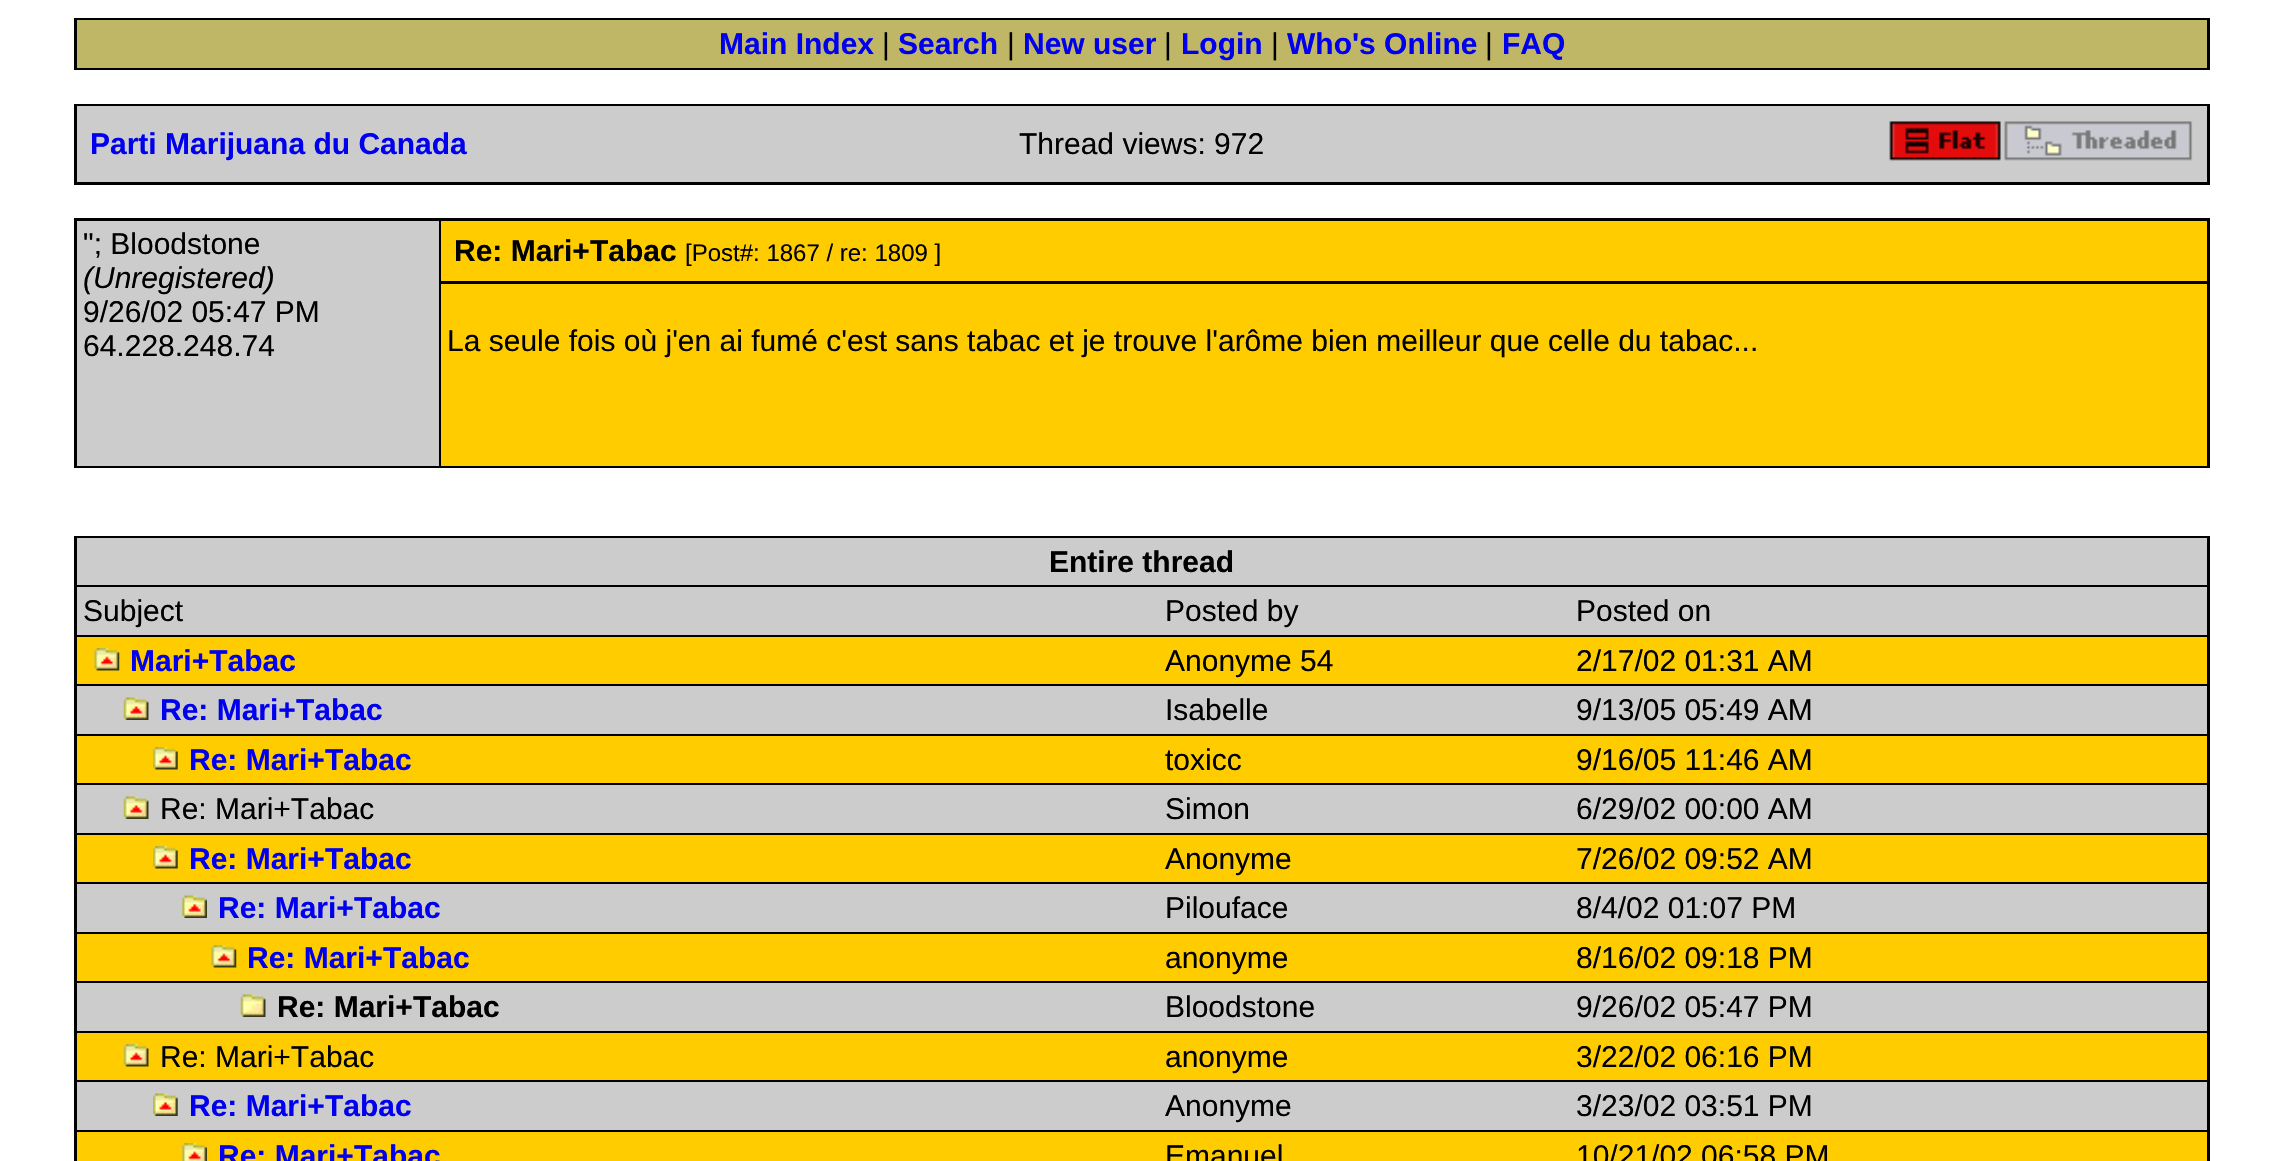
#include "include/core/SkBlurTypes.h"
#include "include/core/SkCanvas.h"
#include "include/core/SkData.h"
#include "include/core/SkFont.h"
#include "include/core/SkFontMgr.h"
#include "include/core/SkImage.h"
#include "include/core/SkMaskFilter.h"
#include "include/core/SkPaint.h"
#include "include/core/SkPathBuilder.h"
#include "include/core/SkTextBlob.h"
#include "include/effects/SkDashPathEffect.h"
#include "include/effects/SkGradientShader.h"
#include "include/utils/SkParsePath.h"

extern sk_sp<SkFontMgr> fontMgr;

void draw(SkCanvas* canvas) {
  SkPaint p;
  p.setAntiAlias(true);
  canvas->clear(SK_ColorWHITE);
  p.setColor(SK_ColorBLACK);
  canvas->drawRect(SkRect::MakeLTRB(74, 18, 2210, 70), p);
  p.setColor(SkColorSetRGB(192, 183, 102));
  canvas->drawRect(SkRect::MakeLTRB(77, 20, 2207, 68), p);
  p.setColor(SK_ColorBLACK);
  canvas->drawRect(SkRect::MakeLTRB(74, 104, 2210, 185), p);
  p.setColor(SkColorSetRGB(204, 204, 204));
  canvas->drawRect(SkRect::MakeLTRB(77, 106, 2207, 182), p);
  canvas->drawImageRect(SkImages::DeferredFromEncodedData(SkData::MakeFromFileName("images/1.png")), SkRect::MakeLTRB(1889, 121, 2001, 161), SkSamplingOptions());
  canvas->drawImageRect(SkImages::DeferredFromEncodedData(SkData::MakeFromFileName("images/2.png")), SkRect::MakeLTRB(2004, 121, 2193, 161), SkSamplingOptions());
  p.setColor(SK_ColorBLACK);
  canvas->drawRect(SkRect::MakeLTRB(74, 218, 2210, 468), p);
  p.setColor(SkColorSetRGB(204, 204, 204));
  canvas->drawRect(SkRect::MakeLTRB(77, 221, 439, 466), p);
  p.setColor(SkColorSetRGB(255, 204, 0));
  canvas->drawRect(SkRect::MakeLTRB(441, 221, 2207, 281), p);
  canvas->drawRect(SkRect::MakeLTRB(441, 284, 2207, 466), p);
  p.setColor(SK_ColorBLACK);
  canvas->drawRect(SkRect::MakeLTRB(74, 536, 2210, 1161), p);
  p.setColor(SkColorSetRGB(204, 204, 204));
  canvas->drawRect(SkRect::MakeLTRB(77, 538, 2207, 585), p);
  canvas->drawRect(SkRect::MakeLTRB(77, 587, 2207, 635), p);
  p.setColor(SkColorSetRGB(255, 204, 0));
  canvas->drawRect(SkRect::MakeLTRB(77, 637, 2207, 684), p);
  canvas->drawImageRect(SkImages::DeferredFromEncodedData(SkData::MakeFromFileName("images/3.png")), SkRect::MakeLTRB(94, 648, 120, 671), SkSamplingOptions());
  p.setColor(SkColorSetRGB(204, 204, 204));
  canvas->drawRect(SkRect::MakeLTRB(77, 686, 2207, 734), p);
  canvas->drawImageRect(SkImages::DeferredFromEncodedData(SkData::MakeFromFileName("images/4.png")), SkRect::MakeLTRB(123, 697, 149, 720), SkSamplingOptions());
  p.setColor(SkColorSetRGB(255, 204, 0));
  canvas->drawRect(SkRect::MakeLTRB(77, 736, 2207, 783), p);
  canvas->drawImageRect(SkImages::DeferredFromEncodedData(SkData::MakeFromFileName("images/5.png")), SkRect::MakeLTRB(153, 747, 178, 770), SkSamplingOptions());
  p.setColor(SkColorSetRGB(204, 204, 204));
  canvas->drawRect(SkRect::MakeLTRB(77, 785, 2207, 833), p);
  canvas->drawImageRect(SkImages::DeferredFromEncodedData(SkData::MakeFromFileName("images/4.png")), SkRect::MakeLTRB(123, 796, 149, 819), SkSamplingOptions());
  p.setColor(SkColorSetRGB(255, 204, 0));
  canvas->drawRect(SkRect::MakeLTRB(77, 835, 2207, 882), p);
  canvas->drawImageRect(SkImages::DeferredFromEncodedData(SkData::MakeFromFileName("images/5.png")), SkRect::MakeLTRB(153, 846, 178, 869), SkSamplingOptions());
  p.setColor(SkColorSetRGB(204, 204, 204));
  canvas->drawRect(SkRect::MakeLTRB(77, 884, 2207, 932), p);
  canvas->drawImageRect(SkImages::DeferredFromEncodedData(SkData::MakeFromFileName("images/6.png")), SkRect::MakeLTRB(182, 895, 207, 918), SkSamplingOptions());
  p.setColor(SkColorSetRGB(255, 204, 0));
  canvas->drawRect(SkRect::MakeLTRB(77, 934, 2207, 981), p);
  canvas->drawImageRect(SkImages::DeferredFromEncodedData(SkData::MakeFromFileName("images/7.png")), SkRect::MakeLTRB(211, 945, 237, 968), SkSamplingOptions());
  p.setColor(SkColorSetRGB(204, 204, 204));
  canvas->drawRect(SkRect::MakeLTRB(77, 983, 2207, 1031), p);
  canvas->drawImageRect(SkImages::DeferredFromEncodedData(SkData::MakeFromFileName("images/8.png")), SkRect::MakeLTRB(240, 994, 266, 1017), SkSamplingOptions());
  p.setColor(SkColorSetRGB(255, 204, 0));
  canvas->drawRect(SkRect::MakeLTRB(77, 1033, 2207, 1080), p);
  canvas->drawImageRect(SkImages::DeferredFromEncodedData(SkData::MakeFromFileName("images/9.png")), SkRect::MakeLTRB(123, 1044, 149, 1067), SkSamplingOptions());
  p.setColor(SkColorSetRGB(204, 204, 204));
  canvas->drawRect(SkRect::MakeLTRB(77, 1082, 2207, 1130), p);
  canvas->drawImageRect(SkImages::DeferredFromEncodedData(SkData::MakeFromFileName("images/10.png")), SkRect::MakeLTRB(153, 1093, 178, 1116), SkSamplingOptions());
  p.setColor(SkColorSetRGB(255, 204, 0));
  canvas->drawRect(SkRect::MakeLTRB(77, 1132, 2207, 1161), p);
  canvas->drawImageRect(SkImages::DeferredFromEncodedData(SkData::MakeFromFileName("images/11.png")), SkRect::MakeLTRB(182, 1143, 207, 1161), SkSamplingOptions());
  SkFont font1(fontMgr->matchFamilyStyle("Liberation Sans", SkFontStyle::Bold()), 30);
  font1.setSubpixel(true);
  p.setColor(SkColorSetRGB(0, 0, 238));
  canvas->drawString("Main Index", 719, 54, font1, p);
  SkFont font2(fontMgr->matchFamilyStyle("Liberation Sans", SkFontStyle::Normal()), 30);
  font2.setSubpixel(true);
  p.setColor(SK_ColorBLACK);
  canvas->drawString("|", 882, 54, font2, p);
  p.setColor(SkColorSetRGB(0, 0, 238));
  canvas->drawString("Search", 898, 54, font1, p);
  p.setColor(SK_ColorBLACK);
  canvas->drawString("|", 1007, 54, font2, p);
  p.setColor(SkColorSetRGB(0, 0, 238));
  canvas->drawString("New user", 1023, 54, font1, p);
  p.setColor(SK_ColorBLACK);
  canvas->drawString("|", 1164, 54, font2, p);
  p.setColor(SkColorSetRGB(0, 0, 238));
  canvas->drawString("Login", 1181, 54, font1, p);
  p.setColor(SK_ColorBLACK);
  canvas->drawString("|", 1271, 54, font2, p);
  p.setColor(SkColorSetRGB(0, 0, 238));
  canvas->drawString("Who's Online", 1287, 54, font1, p);
  p.setColor(SK_ColorBLACK);
  canvas->drawString("|", 1485, 54, font2, p);
  p.setColor(SkColorSetRGB(0, 0, 238));
  canvas->drawString("FAQ", 1502, 54, font1, p);
  canvas->drawString("Parti Marijuana du Canada", 90, 154, font1, p);
  p.setColor(SK_ColorBLACK);
  canvas->drawString("Thread views: 972", 1019, 154, font2, p);
  canvas->drawString("\"; Bloodstone", 83, 254, font2, p);
  SkFont font3(fontMgr->matchFamilyStyle("Liberation Sans", SkFontStyle::Italic()), 30);
  font3.setSubpixel(true);
  canvas->drawString("(Unregistered)", 83, 288, font3, p);
  canvas->drawString("9/26/02 05:47 PM", 83, 322, font2, p);
  canvas->drawString("64.228.248.74", 83, 356, font2, p);
  canvas->drawString("Re: Mari+Tabac", 454, 261, font1, p);
  SkFont font4(fontMgr->matchFamilyStyle("Liberation Sans", SkFontStyle::Normal()), 24);
  font4.setSubpixel(true);
  canvas->drawString("[Post#: 1867 / re: 1809 ]", 685, 261, font4, p);
  canvas->drawString("La seule fois où j'en ai fumé c'est sans tabac et je trouve l'arôme bien meilleur que celle du tabac...", 447, 351, font2, p);
  canvas->drawString("Entire thread", 1049, 572, font1, p);
  canvas->drawString("Subject", 83, 621, font2, p);
  canvas->drawString("Posted by", 1165, 621, font2, p);
  canvas->drawString("Posted on", 1576, 621, font2, p);
  p.setColor(SkColorSetRGB(0, 0, 238));
  canvas->drawString("Mari+Tabac", 130, 671, font1, p);
  p.setColor(SK_ColorBLACK);
  canvas->drawString("Anonyme 54", 1165, 671, font2, p);
  canvas->drawString("2/17/02 01:31 AM", 1576, 671, font2, p);
  p.setColor(SkColorSetRGB(0, 0, 238));
  canvas->drawString("Re: Mari+Tabac", 160, 720, font1, p);
  p.setColor(SK_ColorBLACK);
  canvas->drawString("Isabelle", 1165, 720, font2, p);
  canvas->drawString("9/13/05 05:49 AM", 1576, 720, font2, p);
  p.setColor(SkColorSetRGB(0, 0, 238));
  canvas->drawString("Re: Mari+Tabac", 189, 770, font1, p);
  p.setColor(SK_ColorBLACK);
  canvas->drawString("toxicc", 1165, 770, font2, p);
  canvas->drawString("9/16/05 11:46 AM", 1576, 770, font2, p);
  canvas->drawString("Re: Mari+Tabac", 160, 819, font2, p);
  canvas->drawString("Simon", 1165, 819, font2, p);
  canvas->drawString("6/29/02 00:00 AM", 1576, 819, font2, p);
  p.setColor(SkColorSetRGB(0, 0, 238));
  canvas->drawString("Re: Mari+Tabac", 189, 869, font1, p);
  p.setColor(SK_ColorBLACK);
  canvas->drawString("Anonyme", 1165, 869, font2, p);
  canvas->drawString("7/26/02 09:52 AM", 1576, 869, font2, p);
  p.setColor(SkColorSetRGB(0, 0, 238));
  canvas->drawString("Re: Mari+Tabac", 218, 918, font1, p);
  p.setColor(SK_ColorBLACK);
  canvas->drawString("Pilouface", 1165, 918, font2, p);
  canvas->drawString("8/4/02 01:07 PM", 1576, 918, font2, p);
  p.setColor(SkColorSetRGB(0, 0, 238));
  canvas->drawString("Re: Mari+Tabac", 247, 968, font1, p);
  p.setColor(SK_ColorBLACK);
  canvas->drawString("anonyme", 1165, 968, font2, p);
  canvas->drawString("8/16/02 09:18 PM", 1576, 968, font2, p);
  canvas->drawString("Re: Mari+Tabac", 277, 1017, font1, p);
  canvas->drawString("Bloodstone", 1165, 1017, font2, p);
  canvas->drawString("9/26/02 05:47 PM", 1576, 1017, font2, p);
  canvas->drawString("Re: Mari+Tabac", 160, 1067, font2, p);
  canvas->drawString("anonyme", 1165, 1067, font2, p);
  canvas->drawString("3/22/02 06:16 PM", 1576, 1067, font2, p);
  p.setColor(SkColorSetRGB(0, 0, 238));
  canvas->drawString("Re: Mari+Tabac", 189, 1116, font1, p);
  p.setColor(SK_ColorBLACK);
  canvas->drawString("Anonyme", 1165, 1116, font2, p);
  canvas->drawString("3/23/02 03:51 PM", 1576, 1116, font2, p);
  p.setColor(SkColorSetRGB(0, 0, 238));
  canvas->drawString("Re: Mari+Tabac", 218, 1166, font1, p);
  p.setColor(SK_ColorBLACK);
  canvas->drawString("Emanuel", 1165, 1166, font2, p);
  canvas->drawString("10/21/02 06:58 PM", 1576, 1166, font2, p);
}
